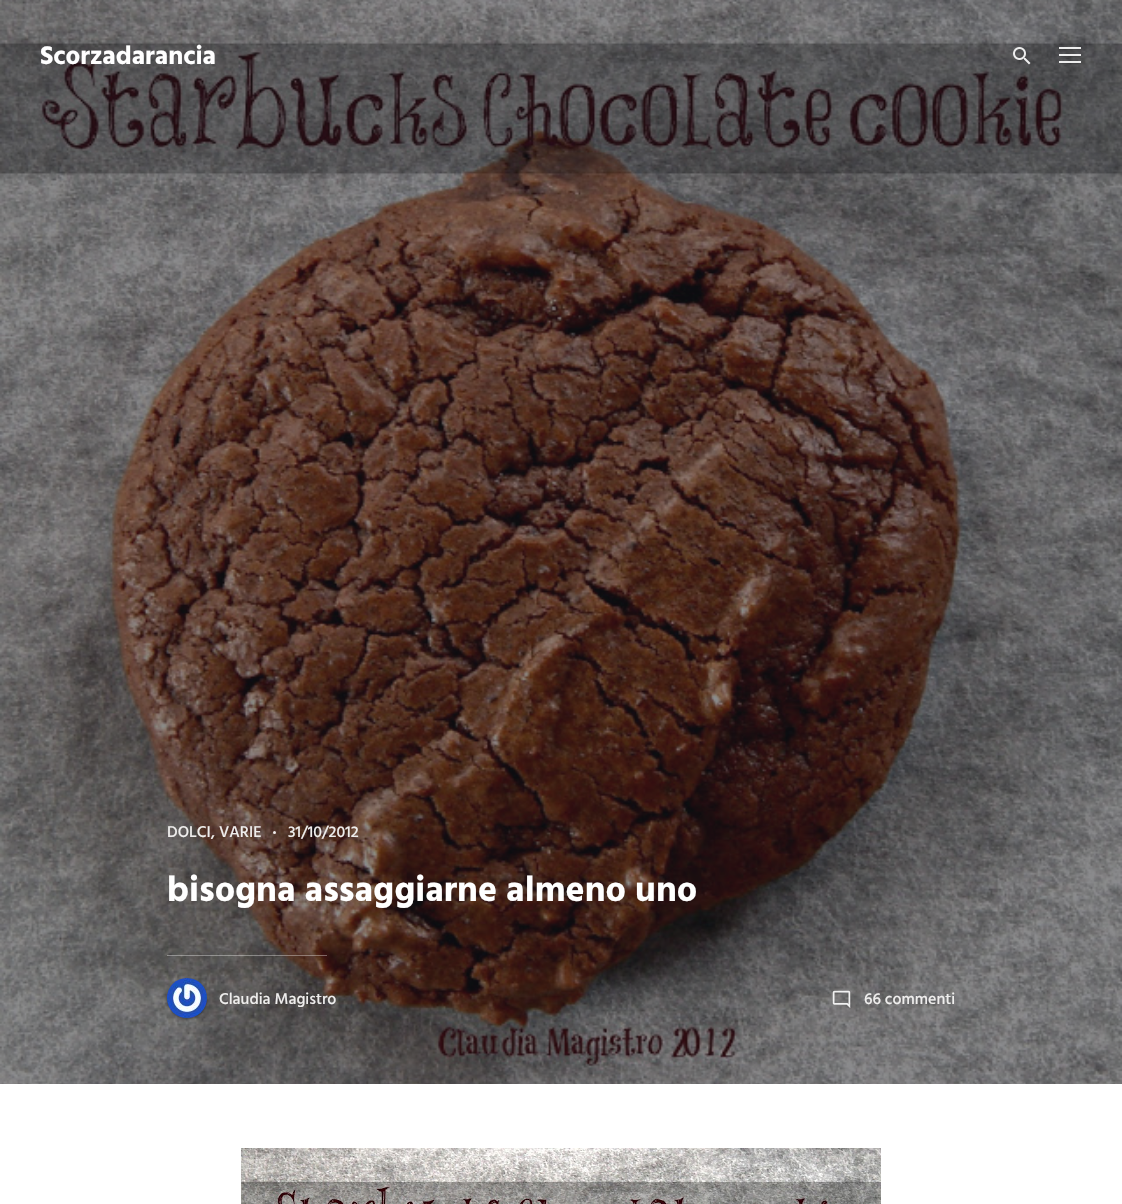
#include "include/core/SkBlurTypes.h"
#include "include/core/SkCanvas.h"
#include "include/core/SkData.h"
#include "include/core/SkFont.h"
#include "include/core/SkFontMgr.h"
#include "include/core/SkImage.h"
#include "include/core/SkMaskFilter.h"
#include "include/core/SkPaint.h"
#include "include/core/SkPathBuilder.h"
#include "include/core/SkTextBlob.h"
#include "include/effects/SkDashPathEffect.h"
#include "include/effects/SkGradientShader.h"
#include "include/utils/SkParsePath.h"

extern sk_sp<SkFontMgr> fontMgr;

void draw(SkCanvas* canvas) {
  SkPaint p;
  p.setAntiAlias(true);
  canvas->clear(SK_ColorWHITE);
  canvas->drawImageRect(SkImages::DeferredFromEncodedData(SkData::MakeFromFileName("images/2.png")), SkRect::MakeLTRB(0, 0, 1122, 1084), SkSamplingOptions());
  canvas->drawImageRect(SkImages::DeferredFromEncodedData(SkData::MakeFromFileName("images/1.png")), SkRect::MakeLTRB(1013, 47, 1031, 65), SkSamplingOptions());
  p.setColor(SkColorSetARGB(64, 0, 0, 0));
  p.setMaskFilter(SkMaskFilter::MakeBlur(kNormal_SkBlurStyle, 1));
  canvas->drawRect(SkRect::MakeLTRB(1059, 48, 1081, 50), p);
  p.setMaskFilter(nullptr);
  p.setColor(SkColorSetARGB(230, 255, 255, 255));
  canvas->drawRect(SkRect::MakeLTRB(1059, 47, 1081, 49), p);
  p.setColor(SkColorSetARGB(64, 0, 0, 0));
  p.setMaskFilter(SkMaskFilter::MakeBlur(kNormal_SkBlurStyle, 1));
  canvas->drawRect(SkRect::MakeLTRB(1059, 55, 1081, 57), p);
  p.setMaskFilter(nullptr);
  p.setColor(SkColorSetARGB(230, 255, 255, 255));
  canvas->drawRect(SkRect::MakeLTRB(1059, 54, 1081, 56), p);
  p.setColor(SkColorSetARGB(64, 0, 0, 0));
  p.setMaskFilter(SkMaskFilter::MakeBlur(kNormal_SkBlurStyle, 1));
  canvas->drawRect(SkRect::MakeLTRB(1059, 62, 1081, 64), p);
  p.setMaskFilter(nullptr);
  p.setColor(SkColorSetARGB(230, 255, 255, 255));
  canvas->drawRect(SkRect::MakeLTRB(1059, 61, 1081, 63), p);
  canvas->drawCircle(274.5f, 832.5f, 1.5f, p);
  p.setColor(SkColorSetARGB(89, 255, 255, 255));
  canvas->drawRect(SkRect::MakeLTRB(167, 955, 327, 956), p);
  p.setColor(SkColorSetARGB(64, 0, 0, 0));
  p.setMaskFilter(SkMaskFilter::MakeBlur(kNormal_SkBlurStyle, 1));
  canvas->drawRoundRect(SkRect::MakeLTRB(167, 979, 207, 1019), 20, 20, p);
  p.setMaskFilter(nullptr);
  canvas->drawImageRect(SkImages::DeferredFromEncodedData(SkData::MakeFromFileName("images/3.png")), SkRect::MakeLTRB(167, 978, 207, 1018), SkSamplingOptions());
  canvas->drawImageRect(SkImages::DeferredFromEncodedData(SkData::MakeFromFileName("images/4.png")), SkRect::MakeLTRB(832, 990, 851, 1008), SkSamplingOptions());
  canvas->drawImageRect(SkImages::DeferredFromEncodedData(SkData::MakeFromFileName("images/5.png")), SkRect::MakeLTRB(241, 1148, 881, 1204), SkSamplingOptions());
  SkFont font1(fontMgr->matchFamilyStyle("Hind", SkFontStyle::Bold()), 26);
  font1.setSubpixel(true);
  p.setColor(SK_ColorWHITE);
  canvas->drawString("Scorzadarancia", 40, 64, font1, p);
  SkFont font2(fontMgr->matchFamilyStyle("Hind", SkFontStyle(500, SkFontStyle::kNormal_Width, SkFontStyle::kUpright_Slant)), 16);
  font2.setSubpixel(true);
  p.setColor(SkColorSetRGB(239, 238, 237));
  canvas->drawString("DOLCI", 167, 837, font2, p);
  canvas->drawString("VARIE", 219, 837, font2, p);
  canvas->drawString(",", 211, 837, font2, p);
  canvas->drawString("31/10/2012", 288, 837, font2, p);
  SkFont font3(fontMgr->matchFamilyStyle("Hind", SkFontStyle::Bold()), 36);
  font3.setSubpixel(true);
  p.setColor(SK_ColorWHITE);
  canvas->drawString("bisogna assaggiarne almeno uno", 167, 901, font3, p);
  p.setColor(SkColorSetRGB(239, 238, 237));
  canvas->drawString("Claudia Magistro", 219, 1004, font2, p);
  canvas->drawString("66 commenti", 864, 1004, font2, p);
}
